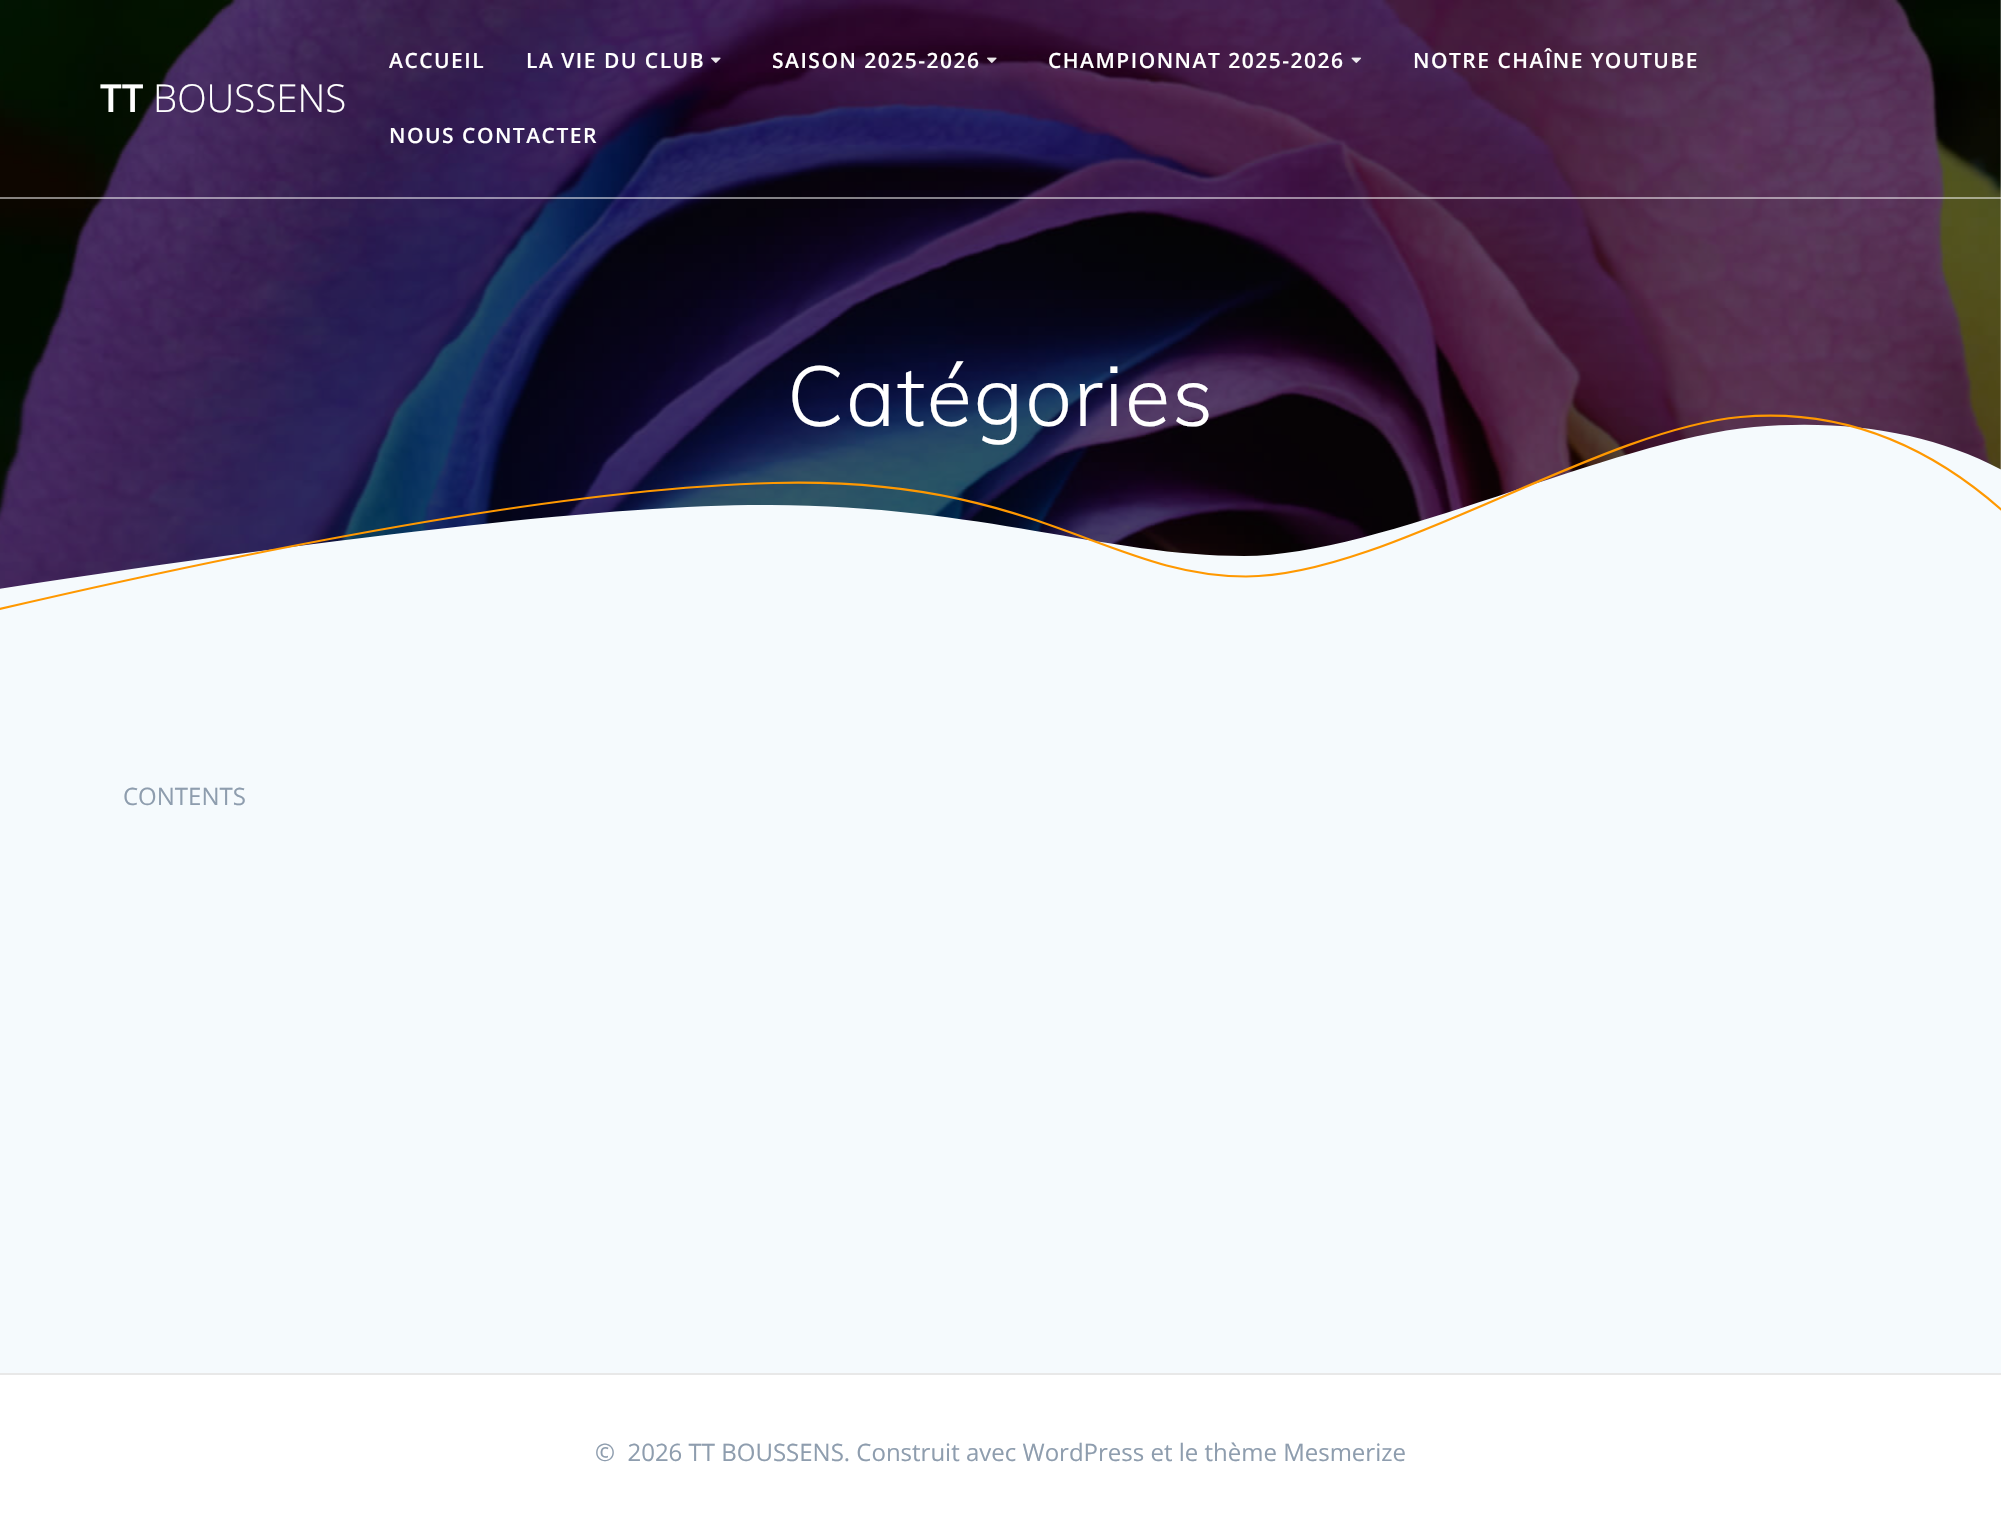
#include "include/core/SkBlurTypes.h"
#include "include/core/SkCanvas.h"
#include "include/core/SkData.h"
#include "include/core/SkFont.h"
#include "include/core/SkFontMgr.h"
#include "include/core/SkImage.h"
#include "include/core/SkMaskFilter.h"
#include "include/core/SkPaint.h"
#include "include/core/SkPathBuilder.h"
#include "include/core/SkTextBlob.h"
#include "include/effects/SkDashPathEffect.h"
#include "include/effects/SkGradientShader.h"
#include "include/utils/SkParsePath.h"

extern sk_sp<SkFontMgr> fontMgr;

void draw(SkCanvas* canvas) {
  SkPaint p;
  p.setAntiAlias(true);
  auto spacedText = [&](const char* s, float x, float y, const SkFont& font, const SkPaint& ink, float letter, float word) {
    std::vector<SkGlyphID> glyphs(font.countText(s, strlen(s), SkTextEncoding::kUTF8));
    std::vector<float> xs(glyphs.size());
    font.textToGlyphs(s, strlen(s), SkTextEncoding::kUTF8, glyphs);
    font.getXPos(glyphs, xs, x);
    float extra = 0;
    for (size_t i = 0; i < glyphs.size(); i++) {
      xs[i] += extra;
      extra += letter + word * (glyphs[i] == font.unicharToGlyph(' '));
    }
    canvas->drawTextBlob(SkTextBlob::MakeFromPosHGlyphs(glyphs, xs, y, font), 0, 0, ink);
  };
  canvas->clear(SK_ColorWHITE);
  canvas->drawImageRect(SkImages::DeferredFromEncodedData(SkData::MakeFromFileName("images/4.png")), SkRect::MakeLTRB(0, 0, 2001, 589), SkSamplingOptions());
  p.setColor(SkColorSetARGB(128, 255, 255, 255));
  canvas->drawRect(SkRect::MakeLTRB(0, 197, 2001, 199), p);
  canvas->drawImageRect(SkImages::DeferredFromEncodedData(SkData::MakeFromFileName("images/1.png")), SkRect::MakeLTRB(711, 57, 721, 63), SkSamplingOptions());
  canvas->drawImageRect(SkImages::DeferredFromEncodedData(SkData::MakeFromFileName("images/2.png")), SkRect::MakeLTRB(987, 57, 997, 63), SkSamplingOptions());
  canvas->drawImageRect(SkImages::DeferredFromEncodedData(SkData::MakeFromFileName("images/3.png")), SkRect::MakeLTRB(1351, 57, 1361, 63), SkSamplingOptions());
  canvas->drawImageRect(SkImages::DeferredFromEncodedData(SkData::MakeFromFileName("images/5.png")), SkRect::MakeLTRB(1116, 356, 1144, 386), SkSamplingOptions());
  p.setColor(SkColorSetRGB(245, 250, 253));
  canvas->drawPath(SkPathBuilder().moveTo(-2, 589).cubicTo(371, 532, 628, 504, 770, 505).cubicTo(984, 506, 1106, 556, 1244, 556).cubicTo(1382, 556, 1611, 440, 1754, 427).cubicTo(1849, 419, 1933, 433, 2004, 471).lineTo(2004, 638).lineTo(-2, 640).close().detach(), p);
  p.setStyle(SkPaint::kStroke_Style);
  p.setStrokeWidth(2.2f);
  p.setColor(SkColorSetRGB(255, 152, 0));
  canvas->drawPath(SkPathBuilder().moveTo(-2.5f, 609.5f).cubicTo(341.5f, 529.5f, 600, 487.5f, 773.5f, 483).cubicTo(1034, 476, 1108, 576.5f, 1246, 576.5f).cubicTo(1384.5f, 576.5f, 1597, 430, 1740.5f, 417).cubicTo(1836, 408.5f, 1924, 440.5f, 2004.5f, 512.5f).detach(), p);
  p.setStyle(SkPaint::kFill_Style);
  p.setColor(SkColorSetRGB(245, 250, 253));
  canvas->drawRect(SkRect::MakeLTRB(0, 638, 2001, 1373), p);
  p.setColor(SkColorSetRGB(232, 232, 232));
  canvas->drawRect(SkRect::MakeLTRB(0, 1373, 2001, 1375), p);
  SkFont font1(fontMgr->matchFamilyStyle("Open Sans", SkFontStyle(600, SkFontStyle::kNormal_Width, SkFontStyle::kUpright_Slant)), 38.5f);
  font1.setSubpixel(true);
  p.setColor(SK_ColorWHITE);
  canvas->drawString("TT", 100, 112, font1, p);
  SkFont font2(fontMgr->matchFamilyStyle("Open Sans", SkFontStyle(300, SkFontStyle::kNormal_Width, SkFontStyle::kUpright_Slant)), 38.5f);
  font2.setSubpixel(true);
  canvas->drawString("BOUSSENS", 153, 112, font2, p);
  SkFont font3(fontMgr->matchFamilyStyle("Open Sans", SkFontStyle(600, SkFontStyle::kNormal_Width, SkFontStyle::kUpright_Slant)), 21);
  font3.setSubpixel(true);
  spacedText("ACCUEIL", 389, 68, font3, p, 1.5f, 0);
  spacedText("LA VIE DU CLUB", 526, 68, font3, p, 1.5f, 0);
  spacedText("SAISON 2025-2026", 772, 68, font3, p, 1.5f, 0);
  spacedText("CHAMPIONNAT 2025-2026", 1048, 68, font3, p, 1.5f, 0);
  spacedText("NOTRE CHAÎNE YOUTUBE", 1413, 68, font3, p, 1.5f, 0);
  spacedText("NOUS CONTACTER", 389, 143, font3, p, 1.5f, 0);
  SkFont font4(fontMgr->matchFamilyStyle("Muli", SkFontStyle(300, SkFontStyle::kNormal_Width, SkFontStyle::kUpright_Slant)), 84);
  font4.setSubpixel(true);
  spacedText("Catégories", 787, 426, font4, p, 1.4f, 0);
  SkFont font5(fontMgr->matchFamilyStyle("Open Sans", SkFontStyle::Normal()), 24);
  font5.setSubpixel(true);
  p.setColor(SkColorSetRGB(142, 157, 174));
  canvas->drawString("CONTENTS", 123, 805, font5, p);
  canvas->drawString("©  2026 TT BOUSSENS. Construit avec WordPress et le thème Mesmerize", 595, 1461, font5, p);
}
